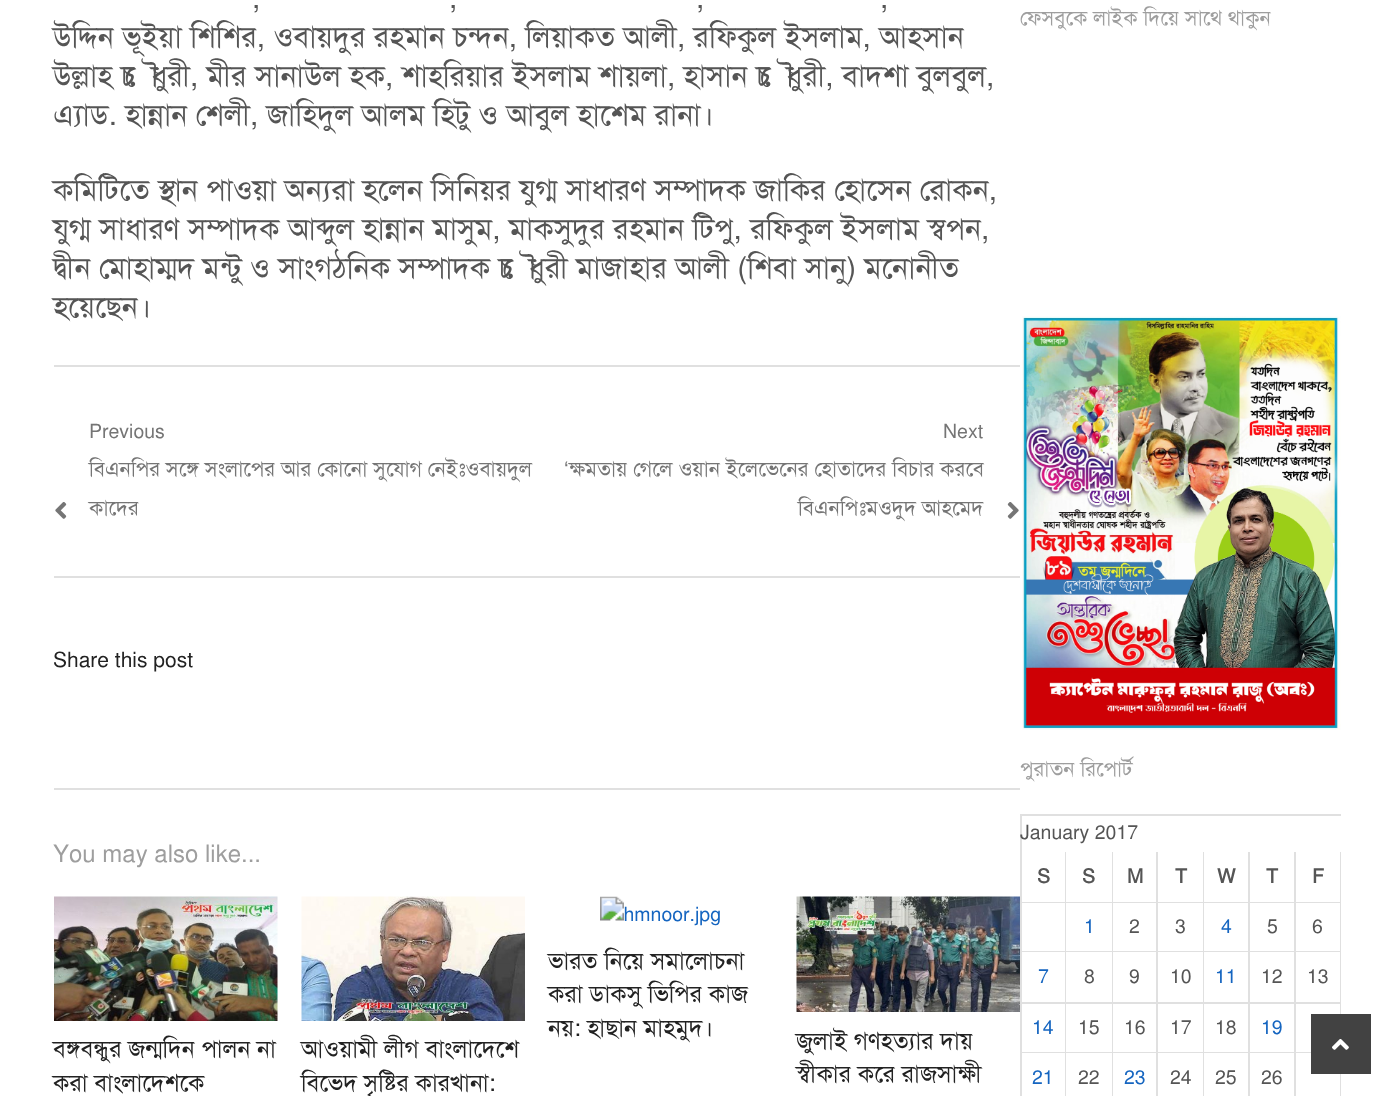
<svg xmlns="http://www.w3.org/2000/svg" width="1395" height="1096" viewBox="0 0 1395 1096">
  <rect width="100%" height="100%" fill="#ffffff"/>
  <rect x="54" y="365" width="966" height="2" fill="#e0e0e0"/>
  <text x="252" y="8" font-family="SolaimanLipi" font-size="30" fill="#555555">,</text>
  <text x="449" y="8" font-family="SolaimanLipi" font-size="30" fill="#555555">,</text>
  <text x="696" y="8" font-family="SolaimanLipi" font-size="30" fill="#555555">,</text>
  <text x="880" y="8" font-family="SolaimanLipi" font-size="30" fill="#555555">,</text>
  <text x="53" y="47" font-family="SolaimanLipi" font-size="30" fill="#555555">উদ্দিন ভূইয়া শিশির, ওবায়দুর রহমান চন্দন, লিয়াকত আলী, রফিকুল ইসলাম, আহসান</text>
  <text x="53" y="86" font-family="SolaimanLipi" font-size="30" fill="#555555">উল্লাহ চৌধুরী, মীর সানাউল হক, শাহরিয়ার ইসলাম শায়লা, হাসান চৌধুরী, বাদশা বুলবুল,</text>
  <text x="53" y="125" font-family="SolaimanLipi" font-size="30" fill="#555555">এ্যাড. হান্নান শেলী, জাহিদুল আলম হিটু ও আবুল হাশেম রানা।</text>
  <text x="53" y="200" font-family="SolaimanLipi" font-size="30" fill="#555555">কমিটিতে স্থান পাওয়া অন্যরা হলেন সিনিয়র যুগ্ম সাধারণ সম্পাদক জাকির হোসেন রোকন,</text>
  <text x="53" y="239" font-family="SolaimanLipi" font-size="30" fill="#555555">যুগ্ম সাধারণ সম্পাদক আব্দুল হান্নান মাসুম, মাকসুদুর রহমান টিপু, রফিকুল ইসলাম স্বপন,</text>
  <text x="53" y="278" font-family="SolaimanLipi" font-size="30" fill="#555555">দ্বীন মোহাম্মদ মন্টু ও সাংগঠনিক সম্পাদক চৌধুরী মাজাহার আলী (শিবা সানু) মনোনীত</text>
  <text x="53" y="317" font-family="SolaimanLipi" font-size="30" fill="#555555">হয়েছেন।</text>
  <rect x="54" y="576" width="966" height="2" fill="#e0e0e0"/>
  <text x="89" y="438" font-family="SolaimanLipi" font-size="19.5" fill="#757575">Previous</text>
  <text x="89" y="476" font-family="SolaimanLipi" font-size="21" fill="#757575">বিএনপির সঙ্গে সংলাপের আর কোনো সুযোগ নেইঃওবায়দুল</text>
  <image x="55" y="502" width="12" height="17" href="img1.png"/>
  <text x="89" y="515" font-family="SolaimanLipi" font-size="21" fill="#757575">কাদের</text>
  <text x="943" y="438" font-family="SolaimanLipi" font-size="19.5" fill="#757575">Next</text>
  <text x="564" y="476" font-family="Liberation Sans" font-size="21" fill="#757575">‘</text>
  <text x="569" y="476" font-family="SolaimanLipi" font-size="21" fill="#757575">ক্ষমতায় গেলে ওয়ান ইলেভেনের হোতাদের বিচার করবে</text>
  <text x="798" y="515" font-family="SolaimanLipi" font-size="21" fill="#757575">বিএনপিঃমওদুদ আহমেদ</text>
  <image x="1007" y="502" width="12" height="17" href="img2.png"/>
  <rect x="54" y="788" width="966" height="2" fill="#e0e0e0"/>
  <text x="53" y="667" font-family="SolaimanLipi" font-size="21" fill="#222222">Share this post</text>
  <text x="53" y="862" font-family="SolaimanLipi" font-size="24" fill="#9e9e9e">You may also like...</text>
  <image x="600" y="896" width="120" height="30" href="img3.png"/>
  <text x="548" y="969" font-family="SolaimanLipi" font-size="24" fill="#222222">ভারত নিয়ে সমালোচনা</text>
  <text x="548" y="1002" font-family="SolaimanLipi" font-size="24" fill="#222222">করা ডাকসু ভিপির কাজ</text>
  <text x="548" y="1036" font-family="SolaimanLipi" font-size="24" fill="#222222">নয়: হাছান মাহমুদ।</text>
  <image x="54" y="896" width="224" height="125" href="img4.png"/>
  <text x="53" y="1057" font-family="SolaimanLipi" font-size="24" fill="#222222">বঙ্গবন্ধুর জন্মদিন পালন না</text>
  <text x="53" y="1091" font-family="SolaimanLipi" font-size="24" fill="#222222">করা বাংলাদেশকে</text>
  <image x="301" y="896" width="224" height="125" href="img5.png"/>
  <text x="301" y="1057" font-family="SolaimanLipi" font-size="24" fill="#222222">আওয়ামী লীগ বাংলাদেশে</text>
  <text x="301" y="1091" font-family="SolaimanLipi" font-size="24" fill="#222222">বিভেদ সৃষ্টির কারখানা:</text>
  <image x="796" y="896" width="224" height="116" href="img6.png"/>
  <text x="796" y="1049" font-family="SolaimanLipi" font-size="24" fill="#222222">জুলাই গণহত্যার দায়</text>
  <text x="796" y="1082" font-family="SolaimanLipi" font-size="24" fill="#222222">স্বীকার করে রাজসাক্ষী</text>
  <text x="1020" y="25" font-family="SolaimanLipi" font-size="21" fill="#9e9e9e">ফেসবুকে লাইক দিয়ে সাথে থাকুন</text>
  <image x="1022" y="316" width="319" height="414" href="img7.png"/>
  <text x="1020" y="776" font-family="SolaimanLipi" font-size="21" fill="#9e9e9e">পুরাতন রিপোর্ট</text>
  <path d="M1020 814H1341V816H1022Z" fill="#e0e0e0"/>
  <path d="M1020 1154V814L1022 816V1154Z" fill="#000000" fill-opacity="0.12"/>
  <text x="1020" y="839" font-family="SolaimanLipi" font-size="19.5" fill="#555555">January 2017</text>
  <path d="M1066 852V903L1065 902V852Z" fill="#e0e0e0"/>
  <path d="M1066 903H1022V902H1065Z" fill="#000000" fill-opacity="0.12"/>
  <text x="1037" y="883" font-family="SolaimanLipi" font-size="19.5" font-weight="bold" fill="#555555">S</text>
  <path d="M1113 852V903L1112 902V852Z" fill="#e0e0e0"/>
  <path d="M1113 903H1066V902H1112Z" fill="#000000" fill-opacity="0.12"/>
  <text x="1082" y="883" font-family="SolaimanLipi" font-size="19.5" font-weight="bold" fill="#555555">S</text>
  <path d="M1158 852V903L1156 902V852Z" fill="#e0e0e0"/>
  <path d="M1158 903H1113V902H1156Z" fill="#000000" fill-opacity="0.12"/>
  <text x="1127" y="883" font-family="SolaimanLipi" font-size="19.5" font-weight="bold" fill="#555555">M</text>
  <path d="M1204 852V903L1203 902V852Z" fill="#e0e0e0"/>
  <path d="M1204 903H1158V902H1203Z" fill="#000000" fill-opacity="0.12"/>
  <text x="1175" y="883" font-family="SolaimanLipi" font-size="19.5" font-weight="bold" fill="#555555">T</text>
  <path d="M1250 852V903L1248 902V852Z" fill="#e0e0e0"/>
  <path d="M1250 903H1204V902H1248Z" fill="#000000" fill-opacity="0.12"/>
  <text x="1217" y="883" font-family="SolaimanLipi" font-size="19.5" font-weight="bold" fill="#555555">W</text>
  <path d="M1296 852V903L1294 902V852Z" fill="#e0e0e0"/>
  <path d="M1296 903H1250V902H1294Z" fill="#000000" fill-opacity="0.12"/>
  <text x="1266" y="883" font-family="SolaimanLipi" font-size="19.5" font-weight="bold" fill="#555555">T</text>
  <path d="M1341 852V903L1340 902V852Z" fill="#e0e0e0"/>
  <path d="M1341 903H1296V902H1340Z" fill="#000000" fill-opacity="0.12"/>
  <text x="1312" y="883" font-family="SolaimanLipi" font-size="19.5" font-weight="bold" fill="#555555">F</text>
  <path d="M1066 903V952L1065 951V903Z" fill="#e0e0e0"/>
  <path d="M1066 952H1022V951H1065Z" fill="#000000" fill-opacity="0.12"/>
  <path d="M1113 903V952L1112 951V903Z" fill="#e0e0e0"/>
  <path d="M1113 952H1066V951H1112Z" fill="#000000" fill-opacity="0.12"/>
  <text x="1084" y="933" font-family="SolaimanLipi" font-size="19.5" fill="#1565c0">1</text>
  <path d="M1158 903V952L1156 951V903Z" fill="#e0e0e0"/>
  <path d="M1158 952H1113V951H1156Z" fill="#000000" fill-opacity="0.12"/>
  <text x="1129" y="933" font-family="SolaimanLipi" font-size="19.5" fill="#555555">2</text>
  <path d="M1204 903V952L1203 951V903Z" fill="#e0e0e0"/>
  <path d="M1204 952H1158V951H1203Z" fill="#000000" fill-opacity="0.12"/>
  <text x="1175" y="933" font-family="SolaimanLipi" font-size="19.5" fill="#555555">3</text>
  <path d="M1250 903V952L1248 951V903Z" fill="#e0e0e0"/>
  <path d="M1250 952H1204V951H1248Z" fill="#000000" fill-opacity="0.12"/>
  <text x="1221" y="933" font-family="SolaimanLipi" font-size="19.5" fill="#1565c0">4</text>
  <path d="M1296 903V952L1294 951V903Z" fill="#e0e0e0"/>
  <path d="M1296 952H1250V951H1294Z" fill="#000000" fill-opacity="0.12"/>
  <text x="1267" y="933" font-family="SolaimanLipi" font-size="19.5" fill="#555555">5</text>
  <path d="M1341 903V952L1340 951V903Z" fill="#e0e0e0"/>
  <path d="M1341 952H1296V951H1340Z" fill="#000000" fill-opacity="0.12"/>
  <text x="1312" y="933" font-family="SolaimanLipi" font-size="19.5" fill="#555555">6</text>
  <path d="M1066 952V1004L1065 1002V952Z" fill="#e0e0e0"/>
  <path d="M1066 1004H1022V1002H1065Z" fill="#000000" fill-opacity="0.12"/>
  <text x="1038" y="983" font-family="SolaimanLipi" font-size="19.5" fill="#1565c0">7</text>
  <path d="M1113 952V1004L1112 1002V952Z" fill="#e0e0e0"/>
  <path d="M1113 1004H1066V1002H1112Z" fill="#000000" fill-opacity="0.12"/>
  <text x="1084" y="983" font-family="SolaimanLipi" font-size="19.5" fill="#555555">8</text>
  <path d="M1158 952V1004L1156 1002V952Z" fill="#e0e0e0"/>
  <path d="M1158 1004H1113V1002H1156Z" fill="#000000" fill-opacity="0.12"/>
  <text x="1129" y="983" font-family="SolaimanLipi" font-size="19.5" fill="#555555">9</text>
  <path d="M1204 952V1004L1203 1002V952Z" fill="#e0e0e0"/>
  <path d="M1204 1004H1158V1002H1203Z" fill="#000000" fill-opacity="0.12"/>
  <text x="1170" y="983" font-family="SolaimanLipi" font-size="19.5" fill="#555555">10</text>
  <path d="M1250 952V1004L1248 1002V952Z" fill="#e0e0e0"/>
  <path d="M1250 1004H1204V1002H1248Z" fill="#000000" fill-opacity="0.12"/>
  <text x="1215" y="983" font-family="SolaimanLipi" font-size="19.5" fill="#1565c0">11</text>
  <path d="M1296 952V1004L1294 1002V952Z" fill="#e0e0e0"/>
  <path d="M1296 1004H1250V1002H1294Z" fill="#000000" fill-opacity="0.12"/>
  <text x="1261" y="983" font-family="SolaimanLipi" font-size="19.5" fill="#555555">12</text>
  <path d="M1341 952V1004L1340 1002V952Z" fill="#e0e0e0"/>
  <path d="M1341 1004H1296V1002H1340Z" fill="#000000" fill-opacity="0.12"/>
  <text x="1307" y="983" font-family="SolaimanLipi" font-size="19.5" fill="#555555">13</text>
  <path d="M1066 1004V1053L1065 1052V1004Z" fill="#e0e0e0"/>
  <path d="M1066 1053H1022V1052H1065Z" fill="#000000" fill-opacity="0.12"/>
  <text x="1032" y="1034" font-family="SolaimanLipi" font-size="19.5" fill="#1565c0">14</text>
  <path d="M1113 1004V1053L1112 1052V1004Z" fill="#e0e0e0"/>
  <path d="M1113 1053H1066V1052H1112Z" fill="#000000" fill-opacity="0.12"/>
  <text x="1078" y="1034" font-family="SolaimanLipi" font-size="19.5" fill="#555555">15</text>
  <path d="M1158 1004V1053L1156 1052V1004Z" fill="#e0e0e0"/>
  <path d="M1158 1053H1113V1052H1156Z" fill="#000000" fill-opacity="0.12"/>
  <text x="1124" y="1034" font-family="SolaimanLipi" font-size="19.5" fill="#555555">16</text>
  <path d="M1204 1004V1053L1203 1052V1004Z" fill="#e0e0e0"/>
  <path d="M1204 1053H1158V1052H1203Z" fill="#000000" fill-opacity="0.12"/>
  <text x="1170" y="1034" font-family="SolaimanLipi" font-size="19.5" fill="#555555">17</text>
  <path d="M1250 1004V1053L1248 1052V1004Z" fill="#e0e0e0"/>
  <path d="M1250 1053H1204V1052H1248Z" fill="#000000" fill-opacity="0.12"/>
  <text x="1215" y="1034" font-family="SolaimanLipi" font-size="19.5" fill="#555555">18</text>
  <path d="M1296 1004V1053L1294 1052V1004Z" fill="#e0e0e0"/>
  <path d="M1296 1053H1250V1052H1294Z" fill="#000000" fill-opacity="0.12"/>
  <text x="1261" y="1034" font-family="SolaimanLipi" font-size="19.5" fill="#1565c0">19</text>
  <path d="M1341 1004V1053L1340 1052V1004Z" fill="#e0e0e0"/>
  <path d="M1341 1053H1296V1052H1340Z" fill="#000000" fill-opacity="0.12"/>
  <path d="M1066 1053V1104L1065 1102V1053ZM1113 1053V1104L1112 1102V1053Z" fill="#e0e0e0"/>
  <text x="1032" y="1084" font-family="SolaimanLipi" font-size="19.5" fill="#1565c0">21</text>
  <text x="1078" y="1084" font-family="SolaimanLipi" font-size="19.5" fill="#555555">22</text>
  <path d="M1158 1053V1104L1156 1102V1053ZM1204 1053V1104L1203 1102V1053Z" fill="#e0e0e0"/>
  <text x="1124" y="1084" font-family="SolaimanLipi" font-size="19.5" fill="#1565c0">23</text>
  <text x="1170" y="1084" font-family="SolaimanLipi" font-size="19.5" fill="#555555">24</text>
  <path d="M1250 1053V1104L1248 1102V1053ZM1296 1053V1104L1294 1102V1053Z" fill="#e0e0e0"/>
  <text x="1215" y="1084" font-family="SolaimanLipi" font-size="19.5" fill="#555555">25</text>
  <text x="1261" y="1084" font-family="SolaimanLipi" font-size="19.5" fill="#555555">26</text>
  <path d="M1341 1053V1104L1340 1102V1053Z" fill="#e0e0e0"/>
  <rect x="1311" y="1014" width="60" height="60" fill="#424242"/>
  <image x="1332" y="1039" width="17" height="11" href="img8.png"/>
</svg>
